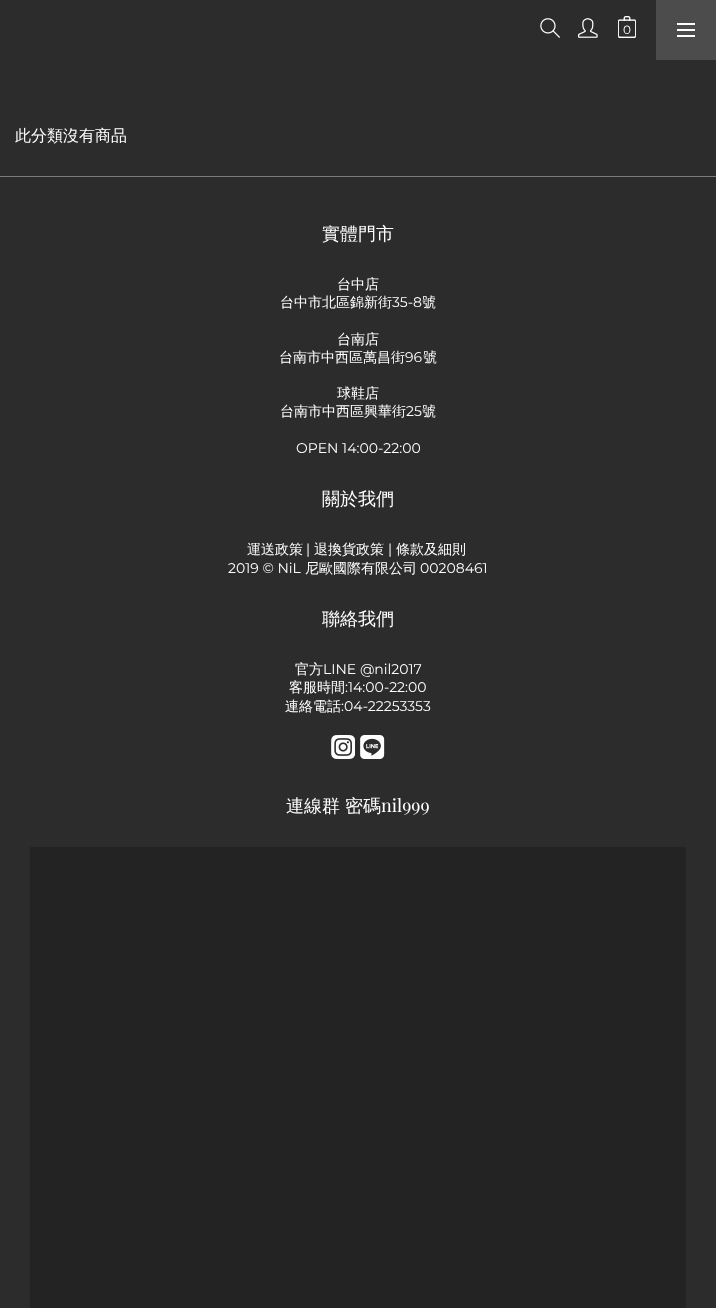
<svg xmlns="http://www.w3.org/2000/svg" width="716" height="1308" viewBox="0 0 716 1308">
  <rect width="100%" height="100%" fill="#2c2c2c"/>
  <image x="540" y="18" width="20" height="20" href="img1.png"/>
  <image x="578" y="18" width="20" height="20" href="img2.png"/>
  <image x="618" y="16" width="18" height="22" href="img3.png"/>
  <rect x="619" y="21" width="16" height="15" fill="#2c2c2c"/>
  <text x="623" y="34" font-family="Montserrat" font-size="12" fill="#ffffff">0</text>
  <rect x="656" y="0" width="60" height="60" fill="#4c4c4c"/>
  <rect x="677" y="29" width="18" height="2" fill="#ffffff"/>
  <rect x="677" y="23" width="18" height="2" fill="#ffffff"/>
  <rect x="677" y="35" width="18" height="2" fill="#ffffff"/>
  <text x="15" y="141" font-family="WenQuanYi Zen Hei" font-size="16" font-weight="500" fill="#ffffff">此分類沒有商品</text>
  <rect x="0" y="176" width="716" height="1" fill="#7c7c7c"/>
  <text x="322" y="240" font-family="WenQuanYi Zen Hei" font-size="18" font-weight="500" fill="#ffffff">實體門市</text>
  <text x="337" y="289" font-family="WenQuanYi Zen Hei" font-size="14" font-weight="500" fill="#ffffff">台中店</text>
  <text x="280" y="307" font-family="WenQuanYi Zen Hei" font-size="14" font-weight="500" fill="#ffffff">台中市北區錦新街</text>
  <text x="392" y="307" font-family="Montserrat" font-size="14" fill="#ffffff">35-8</text>
  <text x="422" y="307" font-family="WenQuanYi Zen Hei" font-size="14" font-weight="500" fill="#ffffff">號</text>
  <text x="337" y="344" font-family="WenQuanYi Zen Hei" font-size="14" font-weight="500" fill="#ffffff">台南店</text>
  <text x="279" y="362" font-family="WenQuanYi Zen Hei" font-size="14" font-weight="500" fill="#ffffff">台南市中西區萬昌街</text>
  <text x="405" y="362" font-family="Montserrat" font-size="14" fill="#ffffff">96</text>
  <text x="423" y="362" font-family="WenQuanYi Zen Hei" font-size="14" font-weight="500" fill="#ffffff">號</text>
  <text x="337" y="398" font-family="WenQuanYi Zen Hei" font-size="14" font-weight="500" fill="#ffffff">球鞋店</text>
  <text x="280" y="416" font-family="WenQuanYi Zen Hei" font-size="14" font-weight="500" fill="#ffffff">台南市中西區興華街</text>
  <text x="406" y="416" font-family="Montserrat" font-size="14" fill="#ffffff">25</text>
  <text x="422" y="416" font-family="WenQuanYi Zen Hei" font-size="14" font-weight="500" fill="#ffffff">號</text>
  <text x="296" y="453" font-family="Montserrat" font-size="14" fill="#ffffff">OPEN 14:00-22:00</text>
  <text x="322" y="505" font-family="WenQuanYi Zen Hei" font-size="18" font-weight="500" fill="#ffffff">關於我們</text>
  <text x="247" y="554" font-family="WenQuanYi Zen Hei" font-size="14" font-weight="500" fill="#ffffff">運送政策</text>
  <text x="306" y="554" font-family="Montserrat" font-size="14" fill="#ffffff">|</text>
  <text x="314" y="554" font-family="WenQuanYi Zen Hei" font-size="14" font-weight="500" fill="#ffffff">退換貨政策</text>
  <text x="388" y="554" font-family="Montserrat" font-size="14" fill="#ffffff">|</text>
  <text x="396" y="554" font-family="WenQuanYi Zen Hei" font-size="14" font-weight="500" fill="#ffffff">條款及細則</text>
  <text x="228" y="573" font-family="Montserrat" font-size="14" fill="#ffffff">2019 © NiL</text>
  <text x="305" y="573" font-family="WenQuanYi Zen Hei" font-size="14" font-weight="500" fill="#ffffff">尼歐國際有限公司</text>
  <text x="420" y="573" font-family="Montserrat" font-size="14" fill="#ffffff">00208461</text>
  <text x="322" y="625" font-family="WenQuanYi Zen Hei" font-size="18" font-weight="500" fill="#ffffff">聯絡我們</text>
  <text x="295" y="674" font-family="WenQuanYi Zen Hei" font-size="14" font-weight="500" fill="#ffffff">官方</text>
  <text x="323" y="674" font-family="Montserrat" font-size="14" fill="#ffffff">LINE @nil2017</text>
  <text x="289" y="692" font-family="WenQuanYi Zen Hei" font-size="14" font-weight="500" fill="#ffffff">客服時間</text>
  <text x="345" y="692" font-family="Montserrat" font-size="14" fill="#ffffff">:14:00-22:00</text>
  <text x="285" y="711" font-family="WenQuanYi Zen Hei" font-size="14" font-weight="500" fill="#ffffff">連絡電話</text>
  <text x="341" y="711" font-family="Montserrat" font-size="14" fill="#ffffff">:04-22253353</text>
  <image x="331" y="735" width="24" height="24" href="img4.png"/>
  <image x="360" y="735" width="25" height="24" href="img5.png"/>
  <text x="286" y="812" font-family="WenQuanYi Zen Hei" font-size="18" font-weight="500" fill="#ffffff">連線群</text>
  <text x="345" y="812" font-family="WenQuanYi Zen Hei" font-size="18" font-weight="500" fill="#ffffff">密碼</text>
  <text x="381" y="812" font-family="Playfair Display" font-size="18" fill="#ffffff">nil999</text>
  <rect x="30" y="847" width="656" height="461" fill="#232323"/>
</svg>
